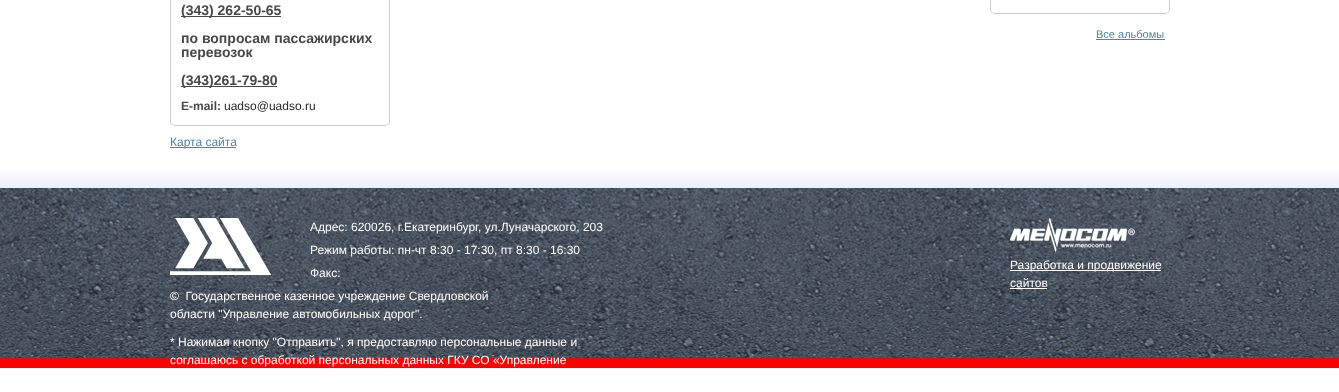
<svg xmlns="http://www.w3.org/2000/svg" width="1339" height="392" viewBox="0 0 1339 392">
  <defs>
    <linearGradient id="g1" gradientUnits="userSpaceOnUse" x1="670" y1="168" x2="670" y2="188"><stop offset="0" stop-color="#ffffff"/><stop offset="1" stop-color="#eaf0fc"/></linearGradient>
  </defs>
  <rect width="100%" height="100%" fill="#ffffff"/>
  <path d="M170.5-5.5H389.5V121C389.5 123.5 387.5 125.5 385 125.5H175C172.5 125.5 170.5 123.5 170.5 121Z" fill="none" stroke="#cecece"/>
  <rect x="181" y="16" width="100" height="1" fill="#484848"/>
  <text x="181" y="15" font-family="Liberation Sans" font-size="14" font-weight="bold" fill="#484848">(343) 262-50-65</text>
  <text x="181" y="43" font-family="Liberation Sans" font-size="14" font-weight="bold" fill="#484848">по вопросам пассажирских</text>
  <text x="181" y="57" font-family="Liberation Sans" font-size="14" font-weight="bold" fill="#484848">перевозок</text>
  <rect x="181" y="86" width="96" height="1" fill="#484848"/>
  <text x="181" y="85" font-family="Liberation Sans" font-size="14" font-weight="bold" fill="#484848">(343)261-79-80</text>
  <text x="181" y="110" font-family="Liberation Sans" font-size="12" font-weight="bold" fill="#484848">E-mail:</text>
  <text x="224" y="110" font-family="Liberation Sans" font-size="12" fill="#292929">uadso@uadso.ru</text>
  <rect x="170" y="147" width="66" height="1" fill="#4d86ac"/>
  <text x="170" y="146" font-family="Liberation Sans" font-size="12" fill="#4d86ac">Карта сайта</text>
  <path d="M990.5-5.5H1169.5V9C1169.5 11.5 1167.5 13.5 1165 13.5H995C992.5 13.5 990.5 11.5 990.5 9Z" fill="none" stroke="#cecece"/>
  <text x="1096" y="38" font-family="Liberation Sans" font-size="11" fill="#4d86ac">Все альбомы</text>
  <rect x="1096" y="39" width="69" height="1" fill="#4d86ac"/>
  <rect x="0" y="170" width="1339" height="18" fill="url(#g1)"/>
  <image x="0" y="188" width="1339" height="170" href="img1.png"/>
  <rect x="0" y="358" width="1339" height="10" fill="#ff0000"/>
  <image x="170" y="218" width="101" height="57" href="img2.png"/>
  <text x="310" y="231" font-family="Liberation Sans" font-size="12" fill="#fffefe">Адрес: 620026, г.Екатеринбург, ул.Луначарского, 203</text>
  <text x="310" y="254" font-family="Liberation Sans" font-size="12" fill="#fffefe">Режим работы: пн-чт 8:30 - 17:30, пт 8:30 - 16:30</text>
  <text x="310" y="277" font-family="Liberation Sans" font-size="12" fill="#fffefe">Факс:</text>
  <text x="170" y="300" font-family="Liberation Sans" font-size="12" fill="#fffefe" xml:space="preserve">©  Государственное казенное учреждение Свердловской</text>
  <text x="170" y="318" font-family="Liberation Sans" font-size="12" fill="#fffefe">области "Управление автомобильных дорог".</text>
  <text x="170" y="346" font-family="Liberation Sans" font-size="12" fill="#fffefe">* Нажимая кнопку "Отправить", я предоставляю персональные данные и</text>
  <text x="170" y="364" font-family="Liberation Sans" font-size="12" fill="#fffefe">соглашаюсь с обработкой персональных данных ГКУ СО «Управление</text>
  <image x="1010" y="218" width="125" height="36" href="img3.png"/>
  <rect x="1010" y="270" width="151" height="1" fill="#fffefe"/>
  <text x="1010" y="269" font-family="Liberation Sans" font-size="12" fill="#fffefe">Разработка и продвижение</text>
  <text x="1010" y="287" font-family="Liberation Sans" font-size="12" fill="#fffefe">сайтов</text>
  <rect x="1010" y="288" width="37" height="1" fill="#fffefe"/>
</svg>
